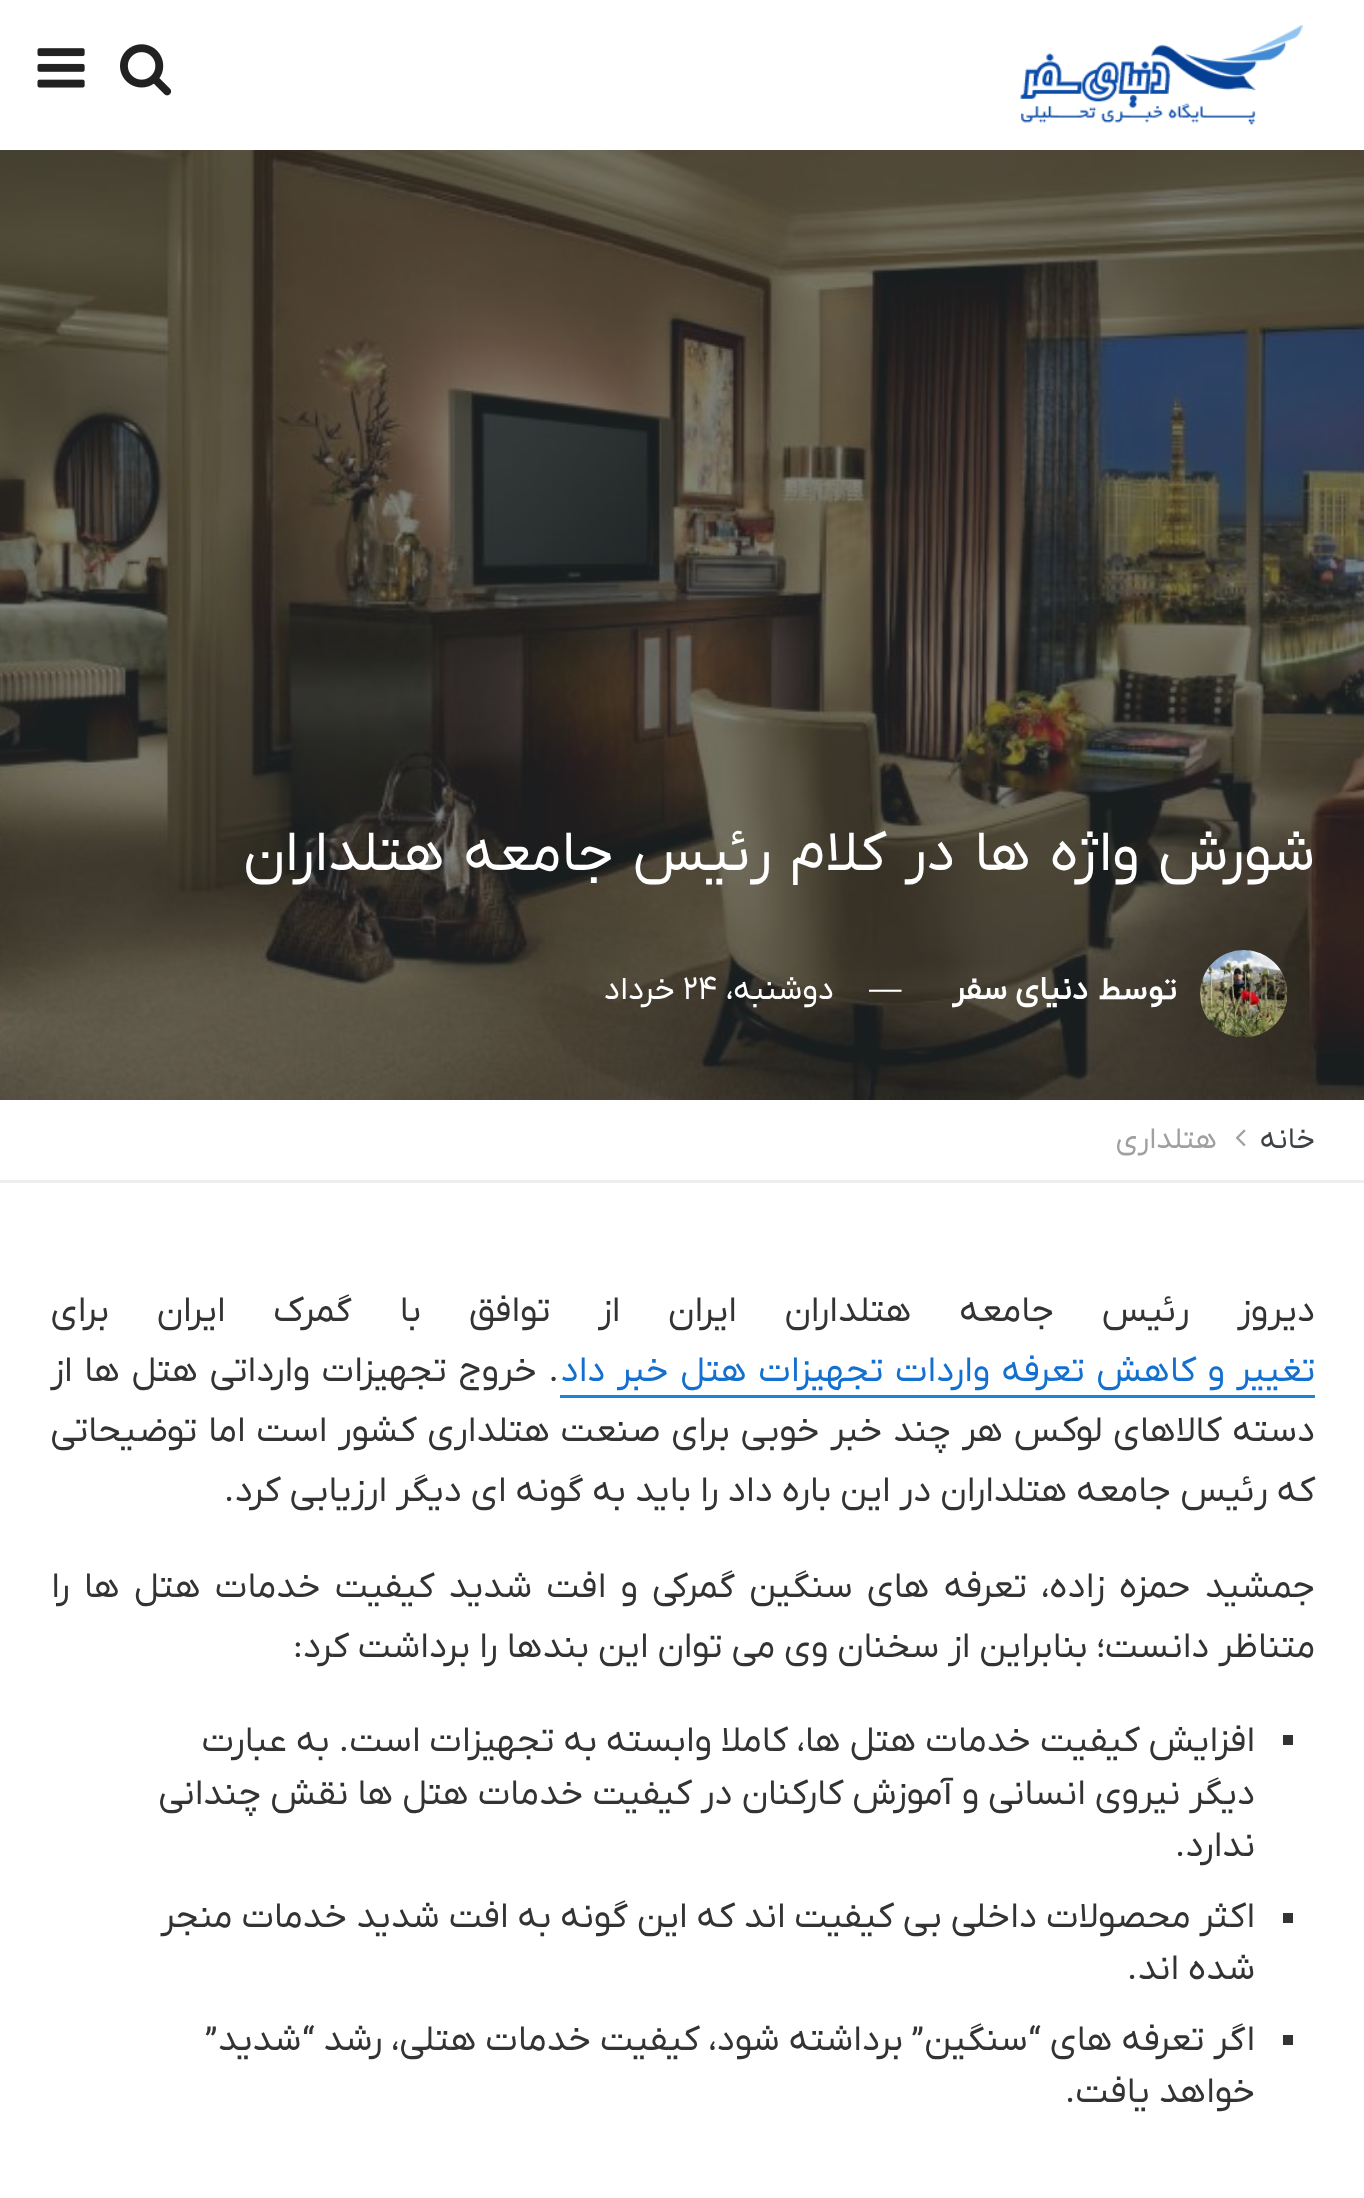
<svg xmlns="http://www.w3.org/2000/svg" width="1364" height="2198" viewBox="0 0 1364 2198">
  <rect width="100%" height="100%" fill="#ffffff"/>
  <image x="1020" y="25" width="283" height="100" href="img1.png"/>
  <image x="120" y="44" width="52" height="52" href="img2.png"/>
  <image x="37" y="48" width="48" height="40" href="img3.png"/>
  <rect x="0" y="150" width="1364" height="950" fill="#293132"/>
  <image x="0" y="150" width="1364" height="950" href="img4.png"/>
  <text x="1315" y="870" word-spacing="4.5" font-family="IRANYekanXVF" font-size="57.5" direction="rtl" fill="#ffffff">شورش واژه ها در کلام رئیس جامعه هتلداران</text>
  <image x="1200" y="950" width="88" height="88" href="img5.png"/>
  <text x="1177" y="999" font-family="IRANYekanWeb" font-size="32.5" font-weight="bold" direction="rtl" fill="#ffffff">توسط</text>
  <text x="1088" y="999" font-family="IRANYekanXVF" font-size="32.5" font-weight="bold" direction="rtl" fill="#ffffff">دنیای سفر</text>
  <text x="869" y="999" font-family="Liberation Sans" font-size="32.5" fill="#ffffff">—</text>
  <text x="834" y="999" font-family="IRANYekanXVF" font-size="32.5" direction="rtl" fill="#ffffff">دوشنبه،</text>
  <text x="683" y="999" font-family="IRANYekanXVF" font-size="32.5" fill="#ffffff">۲۴</text>
  <text x="675" y="999" font-family="IRANYekanXVF" font-size="32.5" direction="rtl" fill="#ffffff">خرداد</text>
  <rect x="0" y="1180" width="1364" height="3" fill="#eeeeee"/>
  <text x="1315" y="1148" font-family="IRANYekanXVF" font-size="30" direction="rtl" fill="#3c4344">خانه</text>
  <image x="1235" y="1129" width="11" height="18" href="img6.png"/>
  <text x="1217" y="1148" font-family="IRANYekanXVF" font-size="30" direction="rtl" fill="#a0a0a0">هتلداری</text>
  <text x="1315" y="1321" word-spacing="38.75" font-family="IRANYekanXVF" font-size="36.25" direction="rtl" fill="#333333">دیروز رئیس جامعه هتلداران ایران از توافق با گمرک ایران برای</text>
  <text x="1315" y="1381" word-spacing="2.5" font-family="IRANYekanXVF" font-size="36.25" direction="rtl" fill="#1370cf">تغییر و کاهش تعرفه واردات تجهیزات هتل خبر داد</text>
  <rect x="560" y="1395" width="755" height="3" fill="#1a86da"/>
  <text x="559" y="1381" word-spacing="2.5" font-family="IRANYekanXVF" font-size="36.25" direction="rtl" fill="#333333">. خروج تجهیزات وارداتی هتل ها از</text>
  <text x="1315" y="1441" word-spacing="1.75" font-family="IRANYekanXVF" font-size="36.25" direction="rtl" fill="#333333">دسته کالاهای لوکس هر چند خبر خوبی برای صنعت هتلداری کشور است اما توضیحاتی</text>
  <text x="1315" y="1501" font-family="IRANYekanXVF" font-size="36.25" direction="rtl" fill="#333333">که رئیس جامعه هتلداران در این باره داد را باید به گونه ای دیگر ارزیابی کرد.</text>
  <text x="1315" y="1597" word-spacing="5.25" font-family="IRANYekanXVF" font-size="36.25" direction="rtl" fill="#333333">جمشید حمزه زاده، تعرفه های سنگین گمرکی و افت شدید کیفیت خدمات هتل ها را</text>
  <text x="1315" y="1657" font-family="IRANYekanXVF" font-size="36.25" direction="rtl" fill="#333333">متناظر دانست؛ بنابراین از سخنان وی می توان این بندها را برداشت کرد:</text>
  <rect x="1283" y="1735" width="10" height="10" fill="#333333"/>
  <text x="1255" y="1751" font-family="IRANYekanXVF" font-size="36.25" direction="rtl" fill="#333333">افزایش کیفیت خدمات هتل ها، کاملا وابسته به تجهیزات است. به عبارت</text>
  <text x="1255" y="1804" font-family="IRANYekanXVF" font-size="36.25" direction="rtl" fill="#333333">دیگر نیروی انسانی و آموزش کارکنان در کیفیت خدمات هتل ها نقش چندانی</text>
  <text x="1255" y="1856" font-family="IRANYekanXVF" font-size="36.25" direction="rtl" fill="#333333">ندارد.</text>
  <rect x="1283" y="1913" width="10" height="10" fill="#333333"/>
  <text x="1255" y="1927" font-family="IRANYekanXVF" font-size="36.25" direction="rtl" fill="#333333">اکثر محصولات داخلی بی کیفیت اند که این گونه به افت شدید خدمات منجر</text>
  <text x="1255" y="1979" font-family="IRANYekanXVF" font-size="36.25" direction="rtl" fill="#333333">شده اند.</text>
  <rect x="1283" y="2035" width="10" height="10" fill="#333333"/>
  <text x="1255" y="2050" font-family="IRANYekanXVF" font-size="36.25" direction="rtl" fill="#333333">اگر تعرفه های “سنگین” برداشته شود، کیفیت خدمات هتلی، رشد “شدید”</text>
  <text x="1255" y="2102" font-family="IRANYekanXVF" font-size="36.25" direction="rtl" fill="#333333">خواهد یافت.</text>
</svg>
